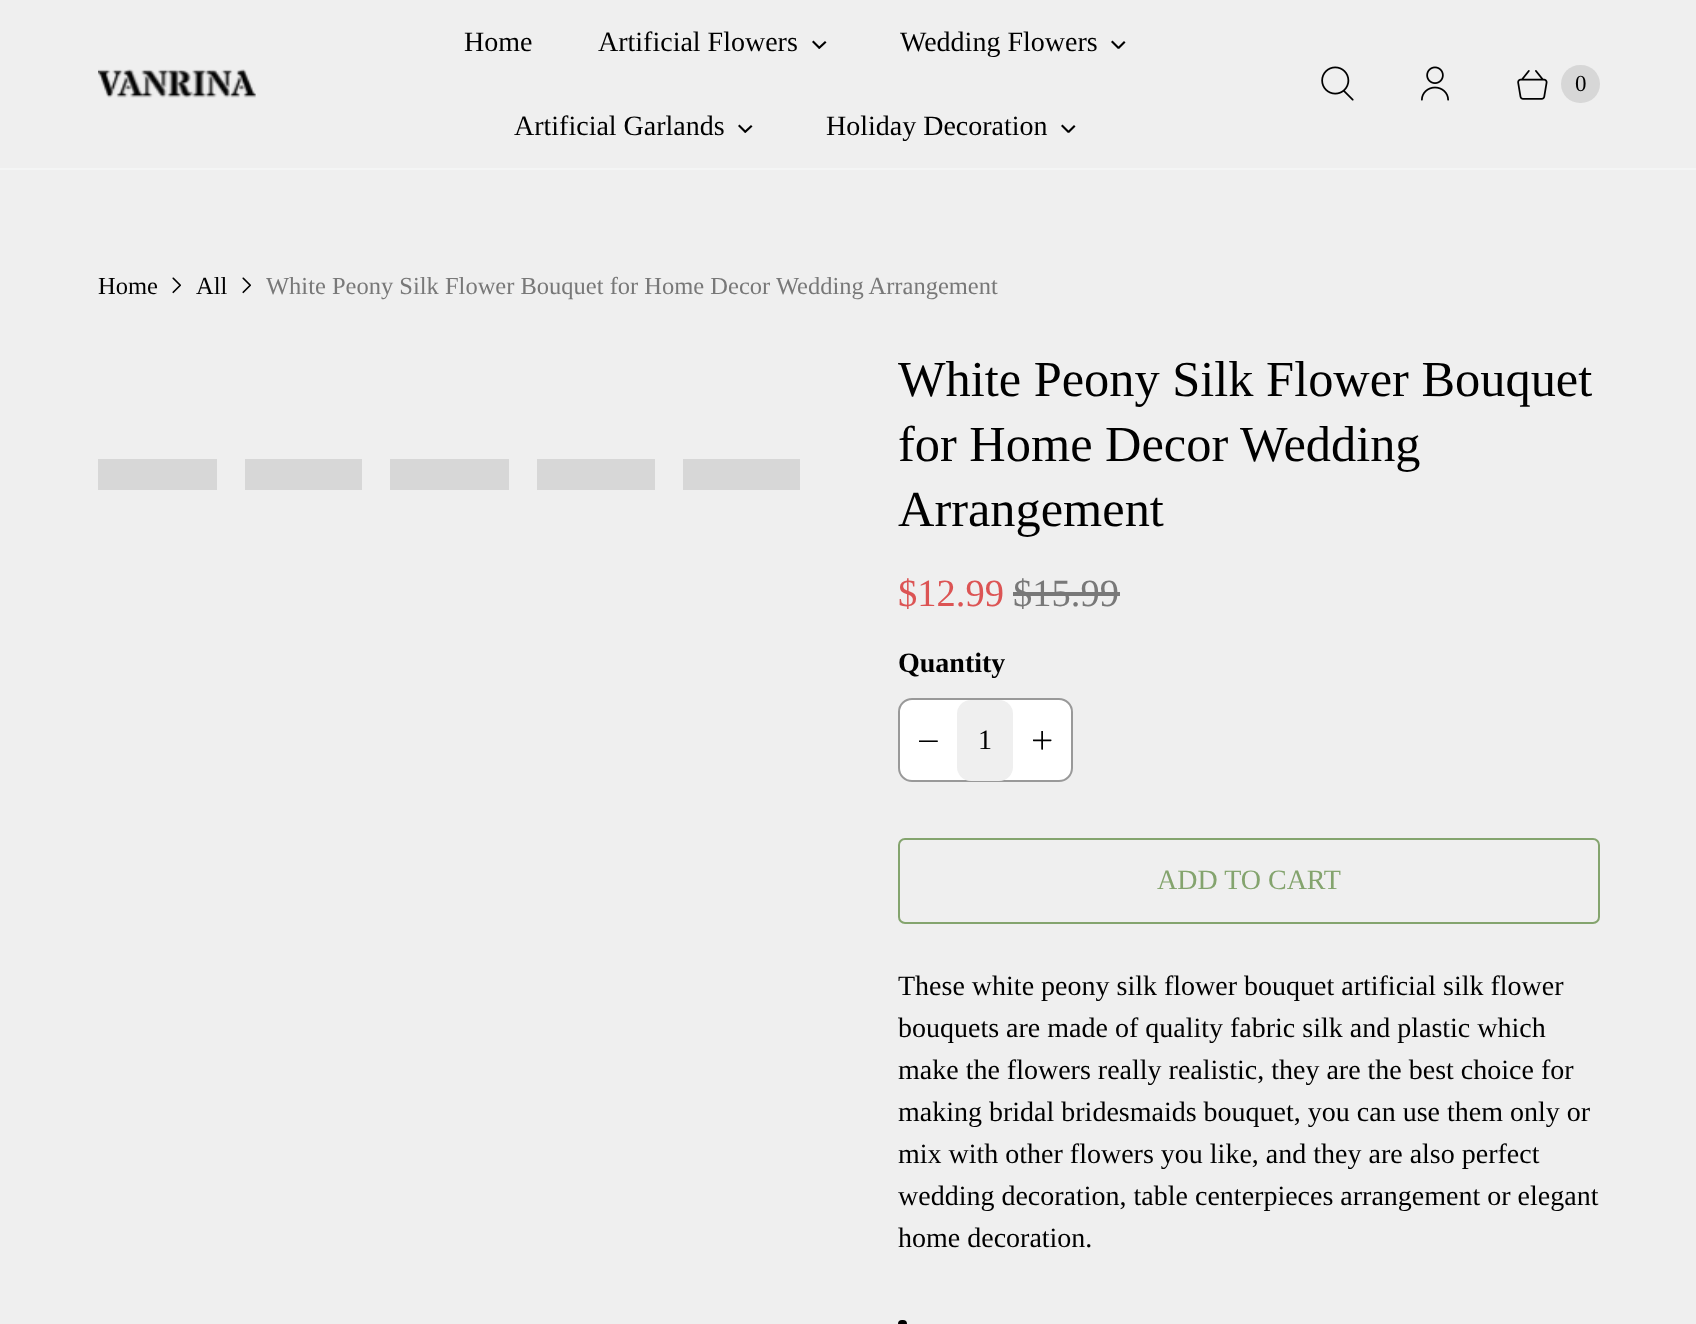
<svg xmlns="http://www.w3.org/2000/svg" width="1696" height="1324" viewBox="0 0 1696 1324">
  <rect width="100%" height="100%" fill="#efefef"/>
  <rect x="0" y="168" width="1696" height="2" fill="#f4f5f5"/>
  <image x="98" y="69" width="158" height="29" href="img1.png"/>
  <text x="464" y="51" font-family="Liberation Serif" font-size="28" fill="#000000">Home</text>
  <text x="598" y="51" font-family="Liberation Serif" font-size="28" fill="#000000">Artificial Flowers</text>
  <path d="M825 41L826.5 42.5L819.5 49L818 47.5Z" fill="#000000"/>
  <path d="M813.5 40.5L820.5 47.5L819 49L812 42Z" fill="#000000"/>
  <text x="900" y="51" font-family="Liberation Serif" font-size="28" fill="#000000">Wedding Flowers</text>
  <path d="M1124 41L1125.5 42.5L1119 49L1117.5 47.5Z" fill="#000000"/>
  <path d="M1112.5 40.5L1119.5 47.5L1118 49L1111 42Z" fill="#000000"/>
  <text x="514" y="135" font-family="Liberation Serif" font-size="28" fill="#000000">Artificial Garlands</text>
  <path d="M751 125L752.5 126.5L745.5 133L744 131.5Z" fill="#000000"/>
  <path d="M739.5 124.5L746.5 131.5L745 133L738 126Z" fill="#000000"/>
  <text x="826" y="135" font-family="Liberation Serif" font-size="28" fill="#000000">Holiday Decoration</text>
  <path d="M1074 125L1075.5 126.5L1069 133L1067.5 131.5Z" fill="#000000"/>
  <path d="M1062.5 124.5L1069.5 131.5L1068 133L1061 126Z" fill="#000000"/>
  <image x="1321" y="66" width="33" height="35" href="img2.png"/>
  <image x="1421" y="66" width="28" height="35" href="img3.png"/>
  <image x="1517" y="70" width="31" height="30" href="img4.png"/>
  <rect x="1561" y="65" width="39" height="38" rx="19" fill="#d7d7d7"/>
  <text x="1575" y="91" font-family="Liberation Serif" font-size="23" fill="#000000">0</text>
  <text x="98" y="294" font-family="Liberation Serif" font-size="24.5" fill="#000000">Home</text>
  <image x="172" y="277" width="9" height="17" href="img5.png"/>
  <text x="196" y="294" font-family="Liberation Serif" font-size="24.5" fill="#000000">All</text>
  <image x="242" y="277" width="9" height="17" href="img5.png"/>
  <text x="266" y="294" font-family="Liberation Serif" font-size="24.5" fill="#787878">White Peony Silk Flower Bouquet for Home Decor Wedding Arrangement</text>
  <rect x="98" y="459" width="119" height="31" fill="#d7d7d7"/>
  <rect x="245" y="459" width="117" height="31" fill="#d7d7d7"/>
  <rect x="390" y="459" width="119" height="31" fill="#d7d7d7"/>
  <rect x="537" y="459" width="118" height="31" fill="#d7d7d7"/>
  <rect x="683" y="459" width="117" height="31" fill="#d7d7d7"/>
  <text x="898" y="396" font-family="Liberation Serif" font-size="50.4" fill="#000000">White Peony Silk Flower Bouquet</text>
  <text x="898" y="461" font-family="Liberation Serif" font-size="50.4" fill="#000000">for Home Decor Wedding</text>
  <text x="898" y="526" font-family="Liberation Serif" font-size="50.4" fill="#000000">Arrangement</text>
  <text x="898" y="606" font-family="Liberation Serif" font-size="38.5" fill="#dc5454">$12.99</text>
  <text x="1013" y="606" font-family="Liberation Serif" font-size="38.5" fill="#787878">$15.99</text>
  <rect x="1013" y="592" width="107" height="4" fill="#787878"/>
  <text x="898" y="672" font-family="Liberation Serif" font-size="28" font-weight="bold" fill="#000000">Quantity</text>
  <rect x="898" y="698" width="175" height="84" rx="14" fill="#ffffff"/>
  <rect x="899" y="699" width="173" height="82" rx="13" fill="none" stroke="#000000" stroke-opacity="0.4" stroke-width="2"/>
  <image x="919" y="740" width="19" height="2" href="img6.png"/>
  <rect x="957" y="700" width="56" height="81" rx="14" fill="#efefef"/>
  <text x="978" y="749" font-family="Liberation Serif" font-size="28" fill="#000000">1</text>
  <image x="1033" y="731" width="19" height="19" href="img7.png"/>
  <rect x="899" y="839" width="700" height="84" rx="6" fill="none" stroke="#84a46e" stroke-width="2"/>
  <text x="1157" y="889" font-family="Liberation Serif" font-size="28" fill="#84a46e">ADD TO CART</text>
  <text x="898" y="995" font-family="Liberation Serif" font-size="28" fill="#000000">These white peony silk flower bouquet artificial silk flower</text>
  <text x="898" y="1037" font-family="Liberation Serif" font-size="28" fill="#000000">bouquets are made of quality fabric silk and plastic which</text>
  <text x="898" y="1079" font-family="Liberation Serif" font-size="28" fill="#000000">make the flowers really realistic, they are the best choice for</text>
  <text x="898" y="1121" font-family="Liberation Serif" font-size="28" fill="#000000">making bridal bridesmaids bouquet, you can use them only or</text>
  <text x="898" y="1163" font-family="Liberation Serif" font-size="28" fill="#000000">mix with other flowers you like, and they are also perfect</text>
  <text x="898" y="1205" font-family="Liberation Serif" font-size="28" fill="#000000">wedding decoration, table centerpieces arrangement or elegant</text>
  <text x="898" y="1247" font-family="Liberation Serif" font-size="28" fill="#000000">home decoration.</text>
  <rect x="898" y="1320" width="9" height="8" rx="4" fill="#000000"/>
</svg>
